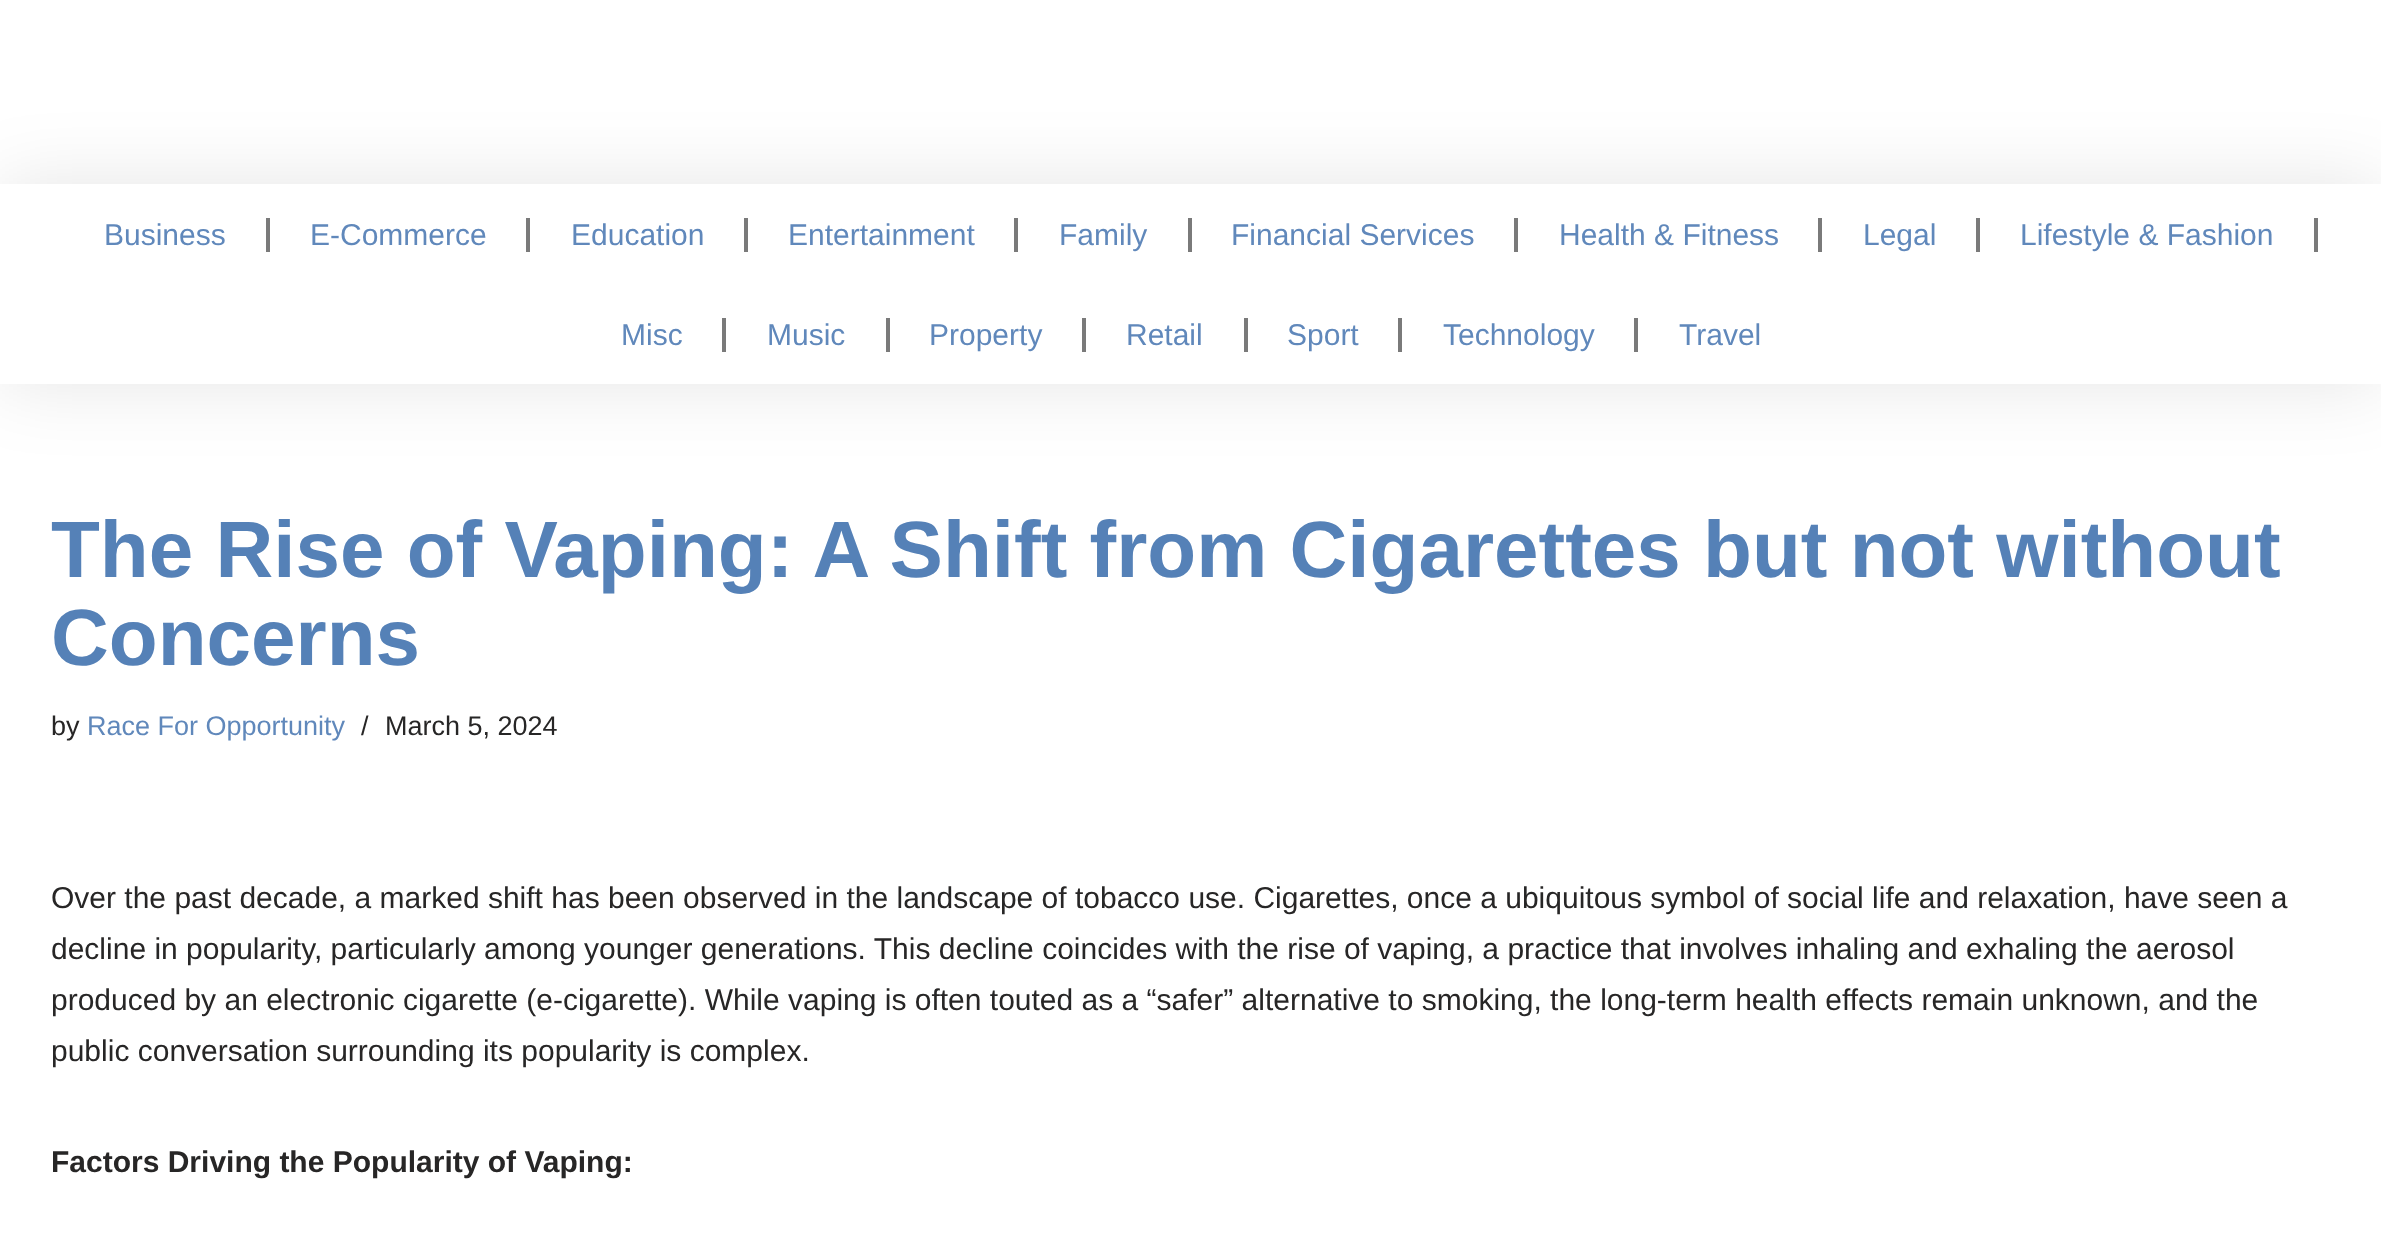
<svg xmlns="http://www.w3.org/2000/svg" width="2381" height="1235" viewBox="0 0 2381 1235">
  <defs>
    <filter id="blur1" x="-50%" y="-200%" width="200%" height="500%"><feGaussianBlur stdDeviation="38"/></filter>
  </defs>
  <rect width="100%" height="100%" fill="#ffffff"/>
  <rect x="0" y="184" width="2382" height="200" fill="#000000" fill-opacity="0.1" filter="url(#blur1)"/>
  <rect x="0" y="184" width="2381" height="200" fill="#ffffff"/>
  <text x="104" y="245" font-family="Liberation Sans" font-size="30" fill="#6088bb">Business</text>
  <rect x="266" y="218" width="4" height="34" fill="#7a7a7a"/>
  <text x="310" y="245" font-family="Liberation Sans" font-size="30" fill="#6088bb">E-Commerce</text>
  <rect x="526" y="218" width="4" height="34" fill="#7a7a7a"/>
  <text x="571" y="245" font-family="Liberation Sans" font-size="30" fill="#6088bb">Education</text>
  <rect x="744" y="218" width="4" height="34" fill="#7a7a7a"/>
  <text x="788" y="245" font-family="Liberation Sans" font-size="30" fill="#6088bb">Entertainment</text>
  <rect x="1014" y="218" width="4" height="34" fill="#7a7a7a"/>
  <text x="1059" y="245" font-family="Liberation Sans" font-size="30" fill="#6088bb">Family</text>
  <rect x="1188" y="218" width="4" height="34" fill="#7a7a7a"/>
  <text x="1231" y="245" font-family="Liberation Sans" font-size="30" fill="#6088bb">Financial Services</text>
  <rect x="1514" y="218" width="4" height="34" fill="#7a7a7a"/>
  <text x="1559" y="245" font-family="Liberation Sans" font-size="30" fill="#6088bb">Health &amp; Fitness</text>
  <rect x="1818" y="218" width="4" height="34" fill="#7a7a7a"/>
  <text x="1863" y="245" font-family="Liberation Sans" font-size="30" fill="#6088bb">Legal</text>
  <rect x="1976" y="218" width="4" height="34" fill="#7a7a7a"/>
  <text x="2020" y="245" font-family="Liberation Sans" font-size="30" fill="#6088bb">Lifestyle &amp; Fashion</text>
  <rect x="2314" y="218" width="4" height="34" fill="#7a7a7a"/>
  <text x="621" y="345" font-family="Liberation Sans" font-size="30" fill="#6088bb">Misc</text>
  <rect x="722" y="318" width="4" height="34" fill="#7a7a7a"/>
  <text x="767" y="345" font-family="Liberation Sans" font-size="30" fill="#6088bb">Music</text>
  <rect x="886" y="318" width="4" height="34" fill="#7a7a7a"/>
  <text x="929" y="345" font-family="Liberation Sans" font-size="30" fill="#6088bb">Property</text>
  <rect x="1082" y="318" width="4" height="34" fill="#7a7a7a"/>
  <text x="1126" y="345" font-family="Liberation Sans" font-size="30" fill="#6088bb">Retail</text>
  <rect x="1244" y="318" width="4" height="34" fill="#7a7a7a"/>
  <text x="1287" y="345" font-family="Liberation Sans" font-size="30" fill="#6088bb">Sport</text>
  <rect x="1398" y="318" width="4" height="34" fill="#7a7a7a"/>
  <text x="1443" y="345" font-family="Liberation Sans" font-size="30" fill="#6088bb">Technology</text>
  <rect x="1634" y="318" width="4" height="34" fill="#7a7a7a"/>
  <text x="1679" y="345" font-family="Liberation Sans" font-size="30" fill="#6088bb">Travel</text>
  <text x="51" y="577" font-family="Liberation Sans" font-size="80" font-weight="bold" fill="#5581b7">The Rise of Vaping: A Shift from Cigarettes but not without</text>
  <text x="51" y="665" font-family="Liberation Sans" font-size="80" font-weight="bold" fill="#5581b7">Concerns</text>
  <text x="51" y="735" font-family="Liberation Sans" font-size="27" fill="#272626">by</text>
  <text x="87" y="735" font-family="Liberation Sans" font-size="27" fill="#6088bb">Race For Opportunity</text>
  <text x="361" y="735" font-family="Liberation Sans" font-size="27" fill="#272626">/</text>
  <text x="385" y="735" font-family="Liberation Sans" font-size="27" fill="#272626">March 5, 2024</text>
  <text x="51" y="908" font-family="Liberation Sans" font-size="30" fill="#272626">Over the past decade, a marked shift has been observed in the landscape of tobacco use. Cigarettes, once a ubiquitous symbol of social life and relaxation, have seen a</text>
  <text x="51" y="959" font-family="Liberation Sans" font-size="30" fill="#272626">decline in popularity, particularly among younger generations. This decline coincides with the rise of vaping, a practice that involves inhaling and exhaling the aerosol</text>
  <text x="51" y="1010" font-family="Liberation Sans" font-size="30" fill="#272626">produced by an electronic cigarette (e-cigarette). While vaping is often touted as a “safer” alternative to smoking, the long-term health effects remain unknown, and the</text>
  <text x="51" y="1061" font-family="Liberation Sans" font-size="30" fill="#272626">public conversation surrounding its popularity is complex.</text>
  <text x="51" y="1172" font-family="Liberation Sans" font-size="30" font-weight="bold" fill="#272626">Factors Driving the Popularity of Vaping:</text>
</svg>
